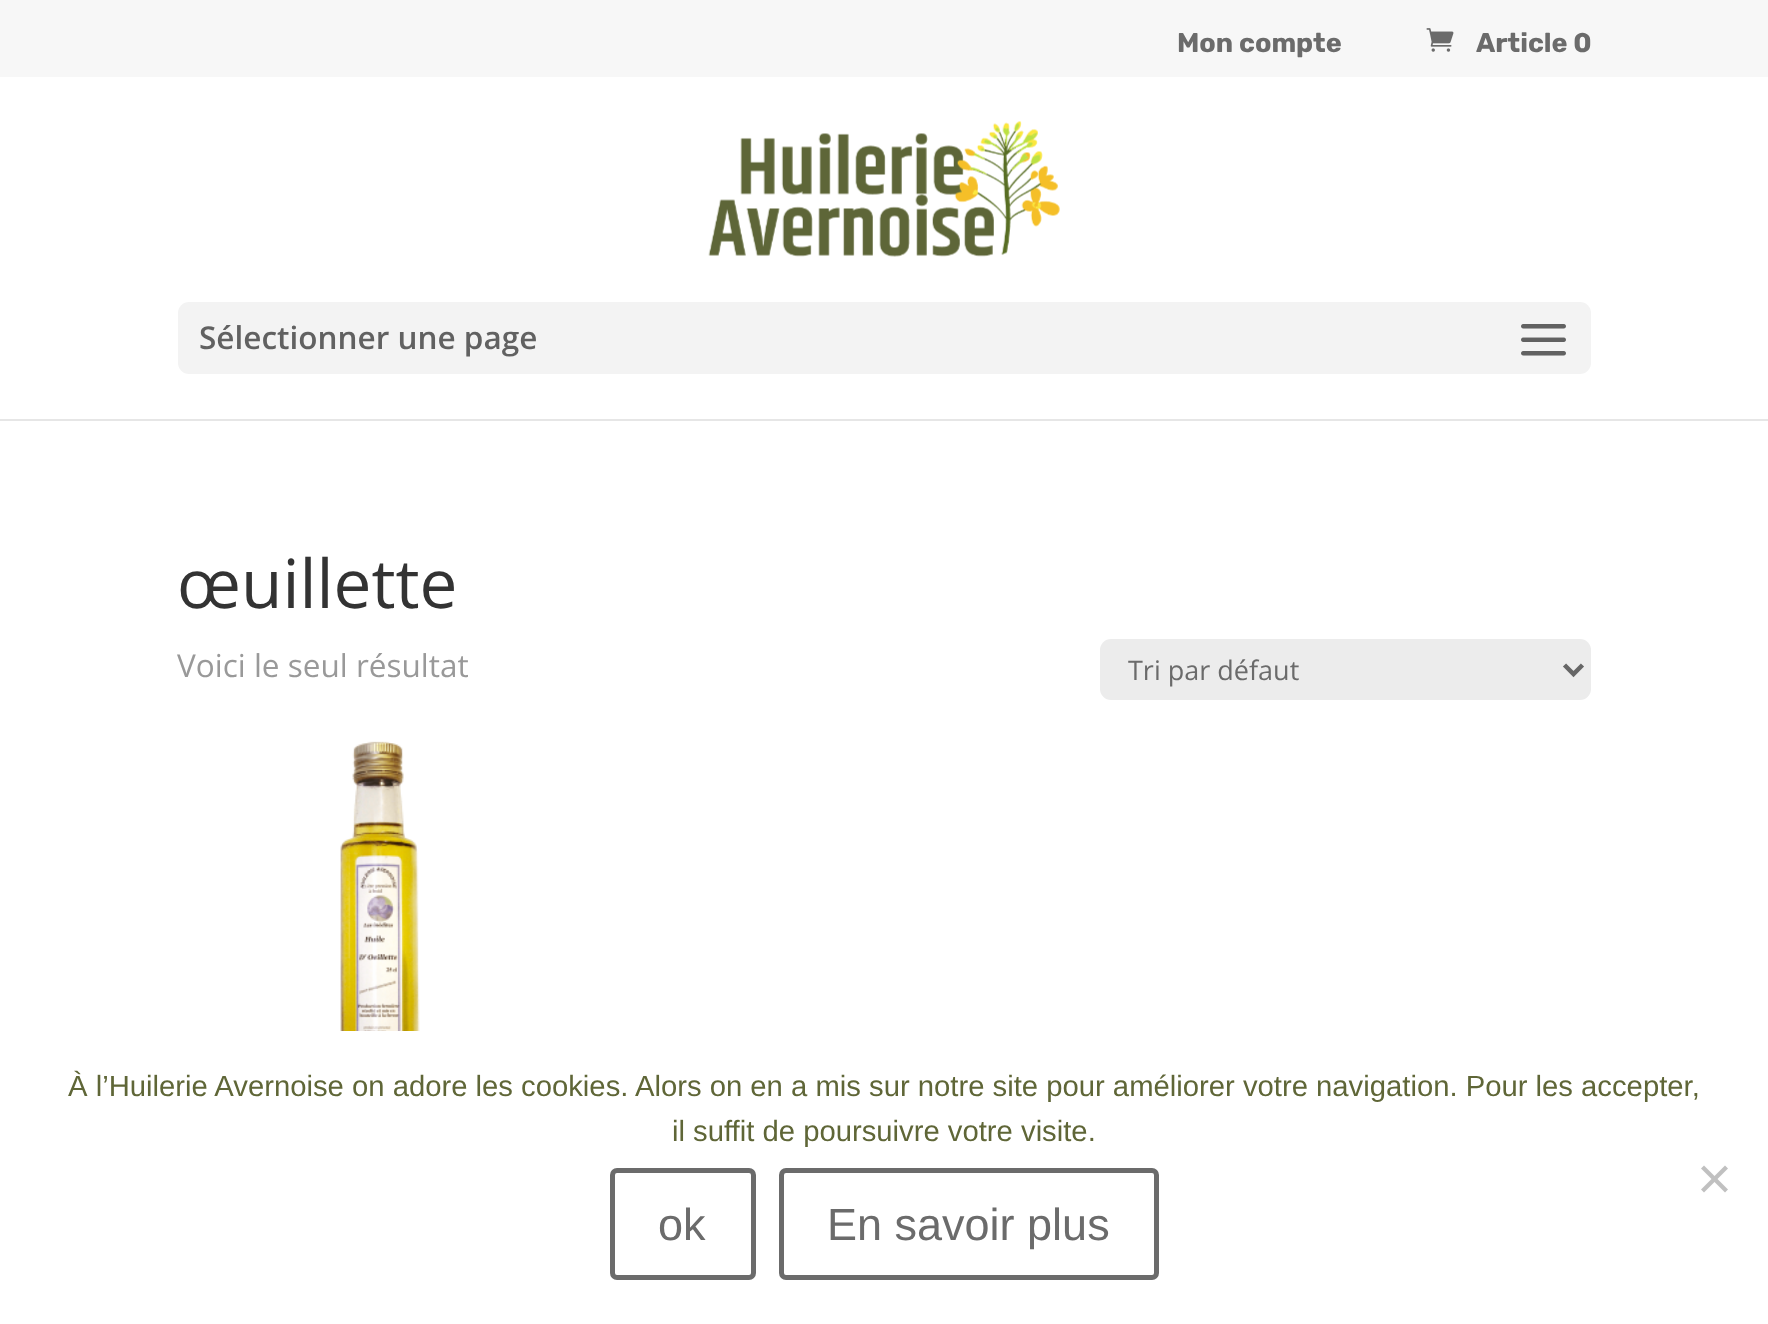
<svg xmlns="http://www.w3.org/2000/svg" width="1768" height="1324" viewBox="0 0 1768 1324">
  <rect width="100%" height="100%" fill="#ffffff"/>
  <rect x="0" y="0" width="1768" height="77" fill="#f7f7f7"/>
  <text x="1177" y="52" font-family="Rubik" font-size="27" font-weight="bold" fill="#6b6b6b">Mon compte</text>
  <image x="1426" y="28" width="28" height="24" href="img1.png"/>
  <text x="1476" y="52" font-family="Rubik" font-size="27" font-weight="bold" fill="#6b6b6b">Article 0</text>
  <path d="M0 418V421H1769V79H1768V418Z" fill="#e6e6e6"/>
  <rect x="0" y="418" width="1768" height="1" fill="#ffffff"/>
  <image x="708" y="121" width="352" height="136" href="img2.png"/>
  <rect x="178" y="302" width="1413" height="72" rx="11" fill="#f3f3f3"/>
  <text x="199" y="349" font-family="Open Sans" font-size="31.5" font-weight="600" fill="#616161">Sélectionner une page</text>
  <image x="1521" y="324" width="45" height="32" href="img3.png"/>
  <text x="177" y="608" font-family="Open Sans" font-size="67.5" fill="#333333">œuillette</text>
  <text x="177" y="677" font-family="Open Sans" font-size="31.5" fill="#999999">Voici le seul résultat</text>
  <rect x="1100" y="639" width="491" height="61" rx="11" fill="#ececec"/>
  <path d="M1564.5 665L1573.5 674L1582.5 665" fill="none" stroke="#666666" stroke-width="4.5"/>
  <text x="1128" y="680" font-family="Open Sans" font-size="27" fill="#6b6b6b">Tri par défaut</text>
  <image x="340" y="741" width="80" height="290" href="img4.png"/>
  <text x="68" y="1096" font-family="Liberation Sans" font-size="29.25" fill="#5f6637">À l’Huilerie Avernoise on adore les cookies. Alors on en a mis sur notre site pour améliorer votre navigation. Pour les accepter,</text>
  <text x="672" y="1141" font-family="Liberation Sans" font-size="29.25" fill="#5f6637">il suffit de poursuivre votre visite.</text>
  <path d="M1725 1165.5L1728 1168.5L1704 1192.5L1701 1189.5Z" fill="#c0c0c0"/>
  <path d="M1701 1168.5L1704 1165.5L1728 1189.5L1725 1192.5Z" fill="#c0c0c0"/>
  <rect x="612.5" y="1170.5" width="141" height="107" rx="4.5" fill="none" stroke="#6b6b6b" stroke-width="5"/>
  <text x="658" y="1240" font-family="Liberation Sans" font-size="45" fill="#6b6b6b">ok</text>
  <rect x="781.5" y="1170.5" width="375" height="107" rx="4.5" fill="none" stroke="#6b6b6b" stroke-width="5"/>
  <text x="827" y="1240" font-family="Liberation Sans" font-size="45" fill="#6b6b6b">En savoir plus</text>
</svg>
